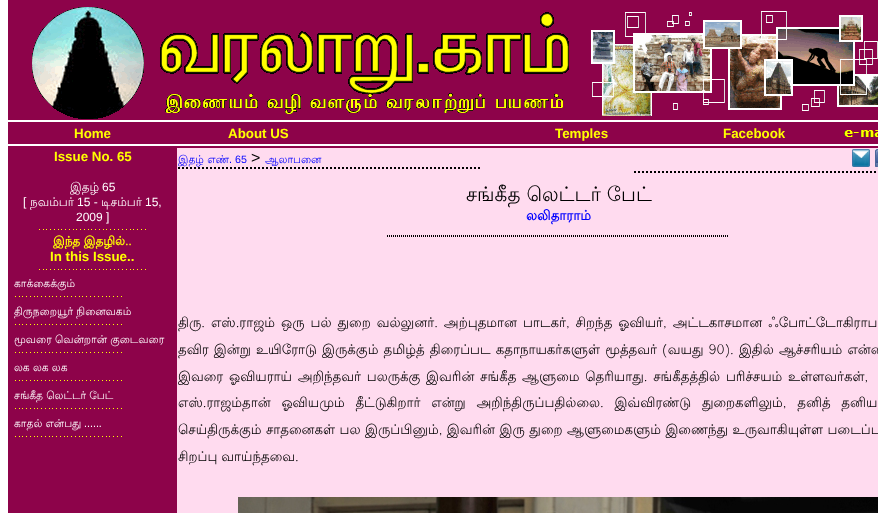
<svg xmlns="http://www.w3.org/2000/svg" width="878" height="513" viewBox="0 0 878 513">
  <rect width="100%" height="100%" fill="#ffffff"/>
  <rect x="8" y="0" width="870" height="120" fill="#8d034a"/>
  <image x="32" y="7" width="112" height="112" href="img1.png"/>
  <image x="160" y="12" width="409" height="102" href="img2.png"/>
  <image x="591" y="11" width="287" height="105" href="img3.png"/>
  <rect x="8" y="122" width="870" height="22" fill="#8d034a"/>
  <text x="74" y="138" font-family="Liberation Sans" font-size="13.33" font-weight="bold" fill="#ffff00">Home</text>
  <text x="228" y="138" font-family="Liberation Sans" font-size="13.33" font-weight="bold" fill="#ffff00">About US</text>
  <text x="555" y="138" font-family="Liberation Sans" font-size="13.33" font-weight="bold" fill="#ffff00">Temples</text>
  <text x="723" y="138" font-family="Liberation Sans" font-size="13.33" font-weight="bold" fill="#ffff00">Facebook</text>
  <image x="844" y="130" width="34" height="7" href="img4.png"/>
  <rect x="8" y="146" width="870" height="367" fill="#8d034a"/>
  <text x="54" y="161" font-family="Liberation Sans" font-size="13.33" font-weight="bold" fill="#ffff00">Issue No. 65</text>
  <text x="70" y="191" font-family="Lohit Tamil" font-size="12" fill="#ffffff">இதழ்</text>
  <text x="102" y="191" font-family="Liberation Sans" font-size="12" fill="#ffffff">65</text>
  <text x="23" y="206" font-family="Liberation Sans" font-size="12" fill="#ffffff">[</text>
  <text x="30" y="206" font-family="Lohit Tamil" font-size="12" fill="#ffffff">நவம்பர்</text>
  <text x="77" y="206" font-family="Liberation Sans" font-size="12" fill="#ffffff">15 -</text>
  <text x="101" y="206" font-family="Lohit Tamil" font-size="12" fill="#ffffff">டிசம்பர்</text>
  <text x="145" y="206" font-family="Liberation Sans" font-size="12" fill="#ffffff">15,</text>
  <text x="76" y="221" font-family="Liberation Sans" font-size="12" fill="#ffffff">2009 ]</text>
  <image x="39" y="229" width="107" height="1" href="img5.png"/>
  <text x="53" y="245" font-family="Lohit Tamil" font-size="12" font-weight="bold" fill="#ffff00">இந்த இதழில்..</text>
  <text x="50" y="261" font-family="Liberation Sans" font-size="13.33" font-weight="bold" fill="#ffff00">In this Issue..</text>
  <image x="39" y="269" width="107" height="1" href="img5.png"/>
  <text x="14" y="287" font-family="Lohit Tamil" font-size="10.7" fill="#ffffff">காக்கைக்கும்</text>
  <image x="15" y="296" width="107" height="1" href="img5.png"/>
  <text x="14" y="315" font-family="Lohit Tamil" font-size="10.7" fill="#ffffff">திருநறையூர் நினைவகம்</text>
  <image x="15" y="324" width="107" height="1" href="img5.png"/>
  <text x="14" y="343" font-family="Lohit Tamil" font-size="10.7" fill="#ffffff">மூவரை வென்றான் குடைவரை</text>
  <image x="15" y="352" width="107" height="1" href="img5.png"/>
  <text x="14" y="371" font-family="Lohit Tamil" font-size="10.7" fill="#ffffff">லக லக லக</text>
  <image x="15" y="380" width="107" height="1" href="img5.png"/>
  <text x="14" y="399" font-family="Lohit Tamil" font-size="10.7" fill="#ffffff">சங்கீத லெட்டர் பேட்</text>
  <image x="15" y="408" width="107" height="1" href="img5.png"/>
  <text x="14" y="427" font-family="Lohit Tamil" font-size="10.7" fill="#ffffff">காதல் என்பது</text>
  <text x="84" y="427" font-family="Liberation Sans" font-size="10.7" fill="#ffffff">......</text>
  <image x="15" y="436" width="107" height="1" href="img5.png"/>
  <rect x="177" y="148" width="701" height="365" fill="#ffdbef"/>
  <path d="M178 168H482" fill="none" stroke="#000000" stroke-width="2" stroke-dasharray="2 2"/>
  <text x="178" y="163" font-family="Lohit Tamil" font-size="10.7" fill="#0000ff">இதழ் எண்</text>
  <text x="229" y="163" font-family="Liberation Sans" font-size="10.7" fill="#0000ff">. 65</text>
  <text x="251" y="163" font-family="Liberation Sans" font-size="16" fill="#000000">&gt;</text>
  <text x="265" y="163" font-family="Lohit Tamil" font-size="10.7" fill="#0000ff">ஆலாபனை</text>
  <path d="M634 172H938" fill="none" stroke="#000000" stroke-width="2" stroke-dasharray="2 2"/>
  <image x="852" y="149" width="18" height="18" href="img6.png"/>
  <image x="875" y="149" width="3" height="18" href="img7.png"/>
  <text x="466" y="201" font-family="Lohit Tamil" font-size="20" fill="#000000">சங்கீத லெட்டர் பேட்</text>
  <text x="526" y="220" font-family="Lohit Tamil" font-size="13.33" font-weight="bold" fill="#0000ff">லலிதாராம்</text>
  <path d="M387 235.5H729" fill="none" stroke="#000000" stroke-dasharray="1 1"/>
  <path d="M387 236.5H729" fill="none" stroke="#000000" stroke-dasharray="1 1"/>
  <text x="178" y="327" word-spacing="2" font-family="Lohit Tamil" font-size="13.33" fill="#000000">திரு. எஸ்.ராஜம் ஒரு பல் துறை வல்லுனர். அற்புதமான பாடகர், சிறந்த ஓவியர், அட்டகாசமான ஃபோட்டோகிராப</text>
  <text x="178" y="354" word-spacing="1.1" font-family="Lohit Tamil" font-size="13.33" fill="#000000">தவிர இன்று உயிரோடு இருக்கும் தமிழ்த் திரைப்பட கதாநாயகர்களுள் மூத்தவர் (வயது 90). இதில் ஆச்சரியம் என்ன</text>
  <text x="178" y="381" word-spacing="1.75" font-family="Lohit Tamil" font-size="13.33" fill="#000000">இவரை ஓவியராய் அறிந்தவர் பலருக்கு இவரின் சங்கீத ஆளுமை தெரியாது. சங்கீதத்தில் பரிச்சயம் உள்ளவர்கள்,</text>
  <text x="178" y="407" word-spacing="6.75" font-family="Lohit Tamil" font-size="13.33" fill="#000000">எஸ்.ராஜம்தான் ஓவியமும் தீட்டுகிறார் என்று அறிந்திருப்பதில்லை. இவ்விரண்டு துறைகளிலும், தனித் தனியா</text>
  <text x="178" y="434" word-spacing="0.5" font-family="Lohit Tamil" font-size="13.33" fill="#000000">செய்திருக்கும் சாதனைகள் பல இருப்பினும், இவரின் இரு துறை ஆளுமைகளும் இணைந்து உருவாகியுள்ள படைப்ப</text>
  <text x="178" y="461" font-family="Lohit Tamil" font-size="13.33" fill="#000000">சிறப்பு வாய்ந்தவை.</text>
  <image x="238" y="497" width="640" height="16" href="img8.png"/>
</svg>
